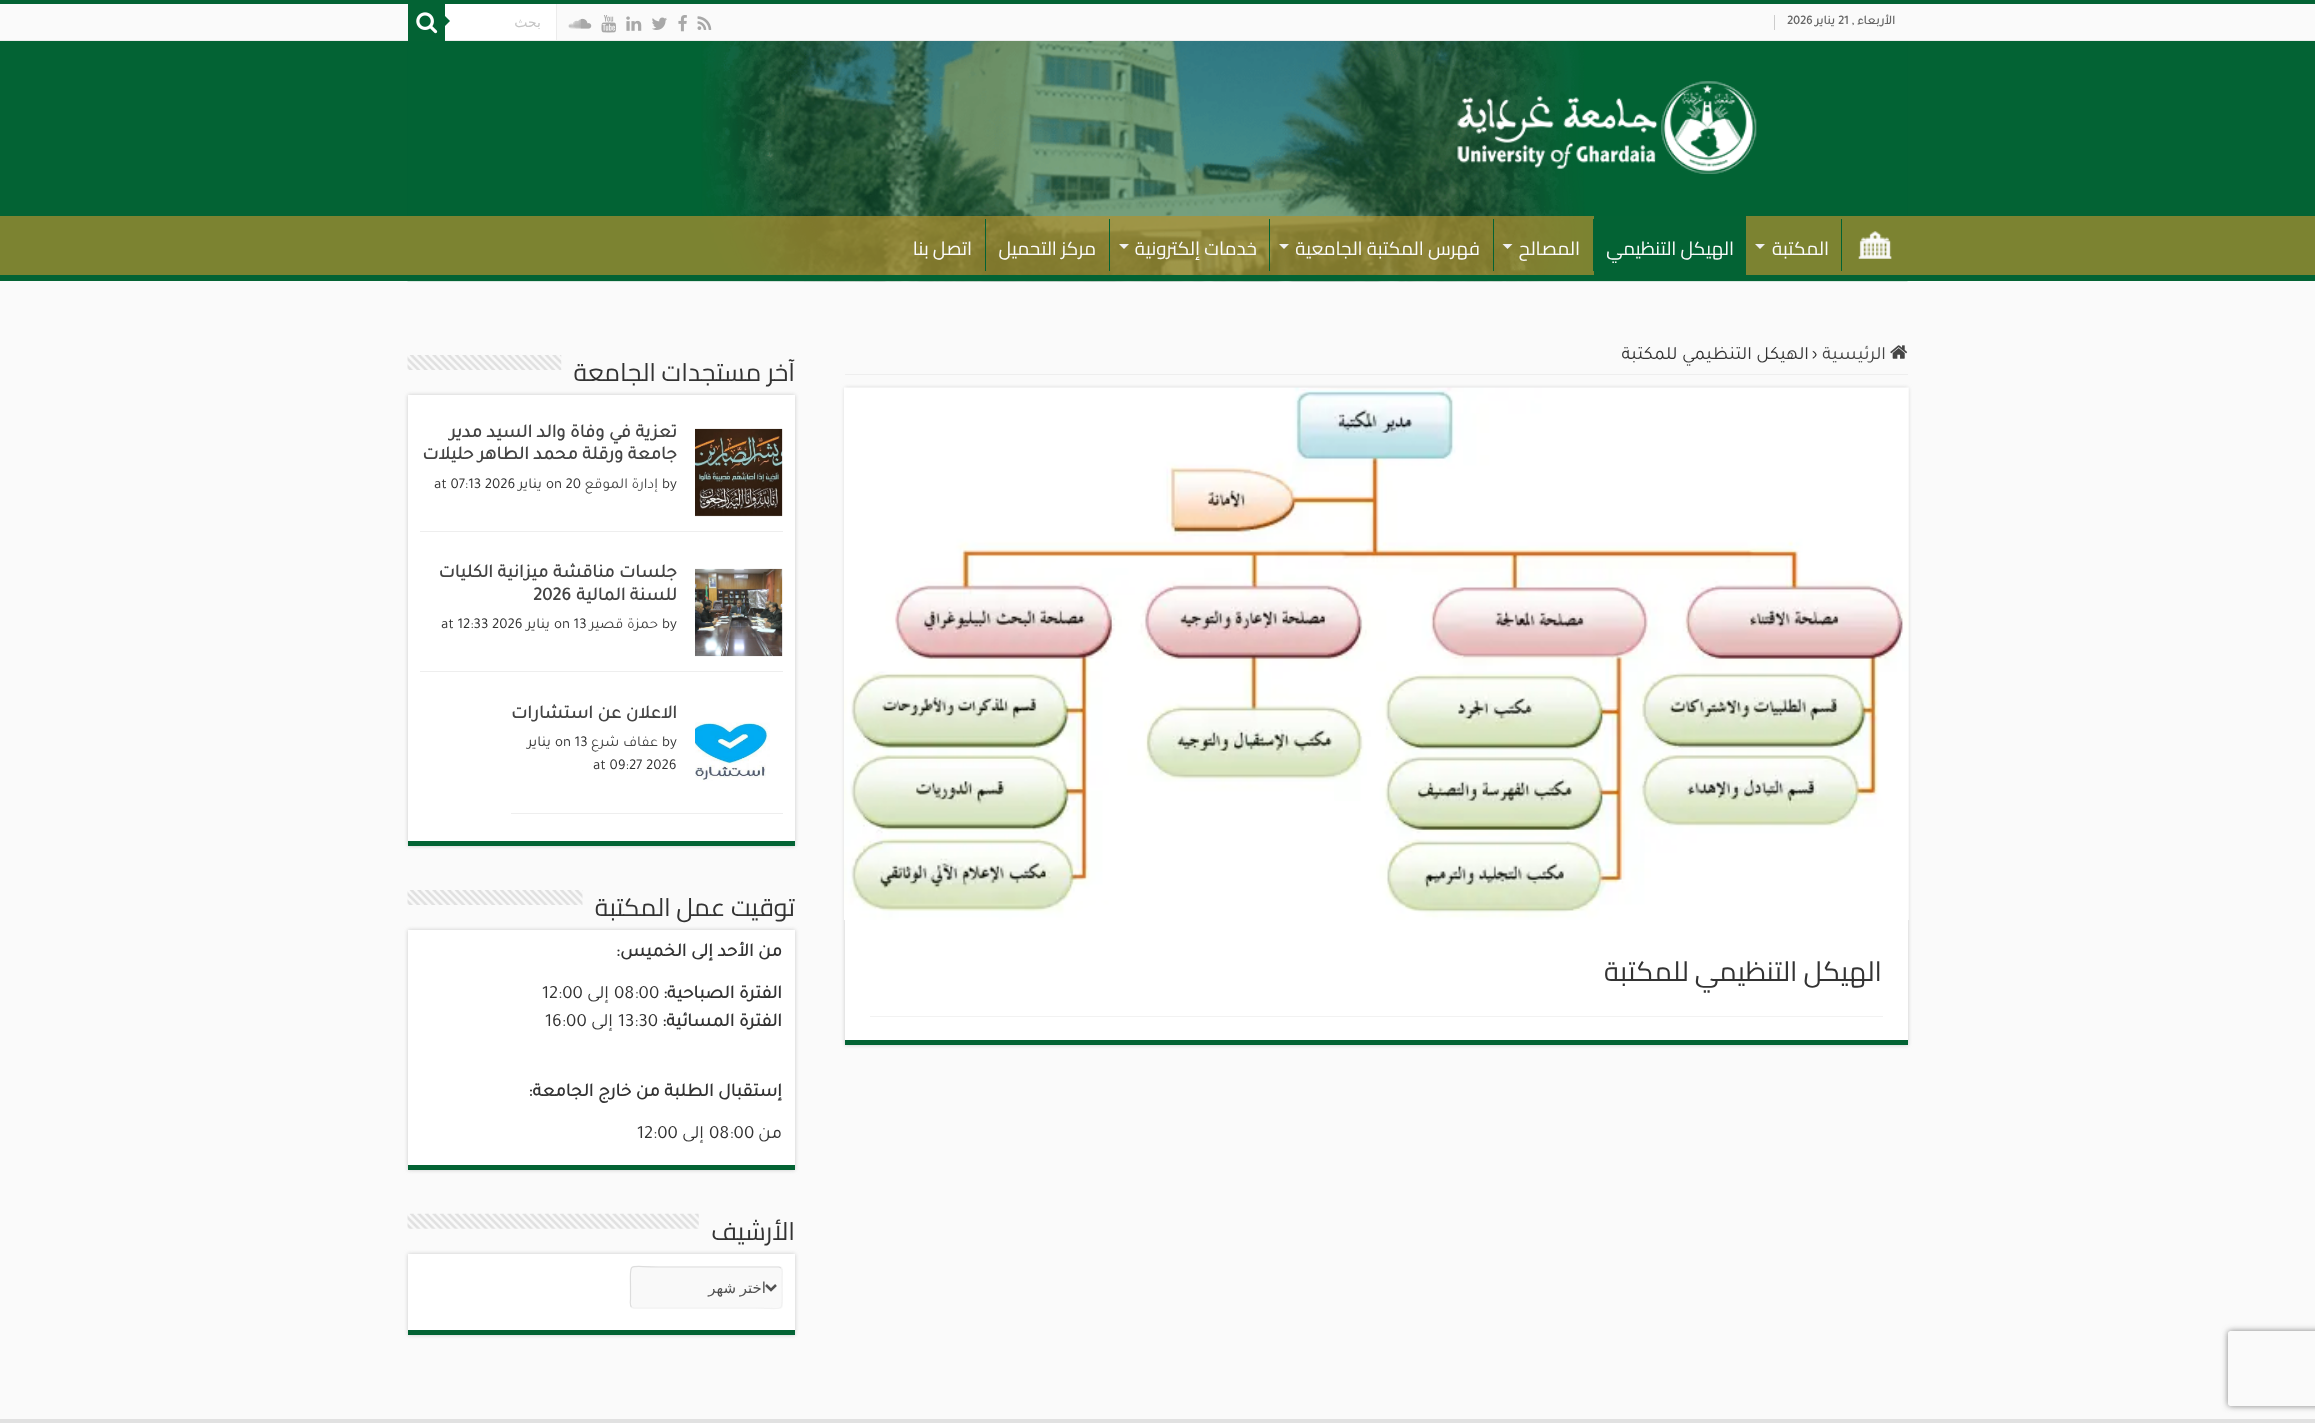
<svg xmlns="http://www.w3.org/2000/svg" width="2315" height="1423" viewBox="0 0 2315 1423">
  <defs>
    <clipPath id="clip1"><rect x="0" y="216" width="2315" height="59"/></clipPath>
    <filter id="blur1" x="-50%" y="-200%" width="200%" height="500%"><feGaussianBlur stdDeviation="2"/></filter>
    <clipPath id="clip2"><path d="M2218 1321H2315V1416H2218ZM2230.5 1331H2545.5C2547 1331 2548 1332 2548 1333.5V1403.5C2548 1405 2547 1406 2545.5 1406H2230.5C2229 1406 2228 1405 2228 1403.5V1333.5C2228 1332 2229 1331 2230.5 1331Z" clip-rule="evenodd"/></clipPath>
    <filter id="blur2" x="-50%" y="-200%" width="200%" height="500%"><feGaussianBlur stdDeviation="3"/></filter>
  </defs>
  <rect width="100%" height="100%" fill="#fafafa"/>
  <rect x="0" y="41" width="2315" height="234" fill="#036334"/>
  <image x="407" y="41" width="1501" height="241" href="img1.png"/>
  <rect x="0" y="0" width="2315" height="4" fill="#036334"/>
  <rect x="0" y="40" width="2315" height="1" fill="#ececec"/>
  <rect x="1774" y="15" width="1" height="15" fill="#cccccc"/>
  <text x="1895" y="24" font-family="Tajawal" font-size="12.5" font-weight="bold" direction="rtl" fill="#666666">الأربعاء ,</text>
  <text x="1838" y="24" font-family="Tajawal" font-size="12.5" font-weight="bold" fill="#666666">21</text>
  <text x="1835" y="24" font-family="Tajawal" font-size="12.5" font-weight="bold" direction="rtl" fill="#666666">يناير</text>
  <text x="1787" y="24" font-family="Tajawal" font-size="12.5" font-weight="bold" fill="#666666">2026</text>
  <image x="697" y="16" width="15" height="14" href="img2.png"/>
  <image x="678" y="15" width="9" height="17" href="img3.png"/>
  <image x="652" y="17" width="15" height="13" href="img4.png"/>
  <image x="626" y="16" width="16" height="15" href="img5.png"/>
  <image x="601" y="15" width="15" height="18" href="img6.png"/>
  <image x="568" y="18" width="24" height="11" href="img7.png"/>
  <rect x="445" y="4" width="111" height="36" fill="#ffffff"/>
  <rect x="556" y="4" width="1" height="36" fill="#ececec"/>
  <text x="541" y="27" font-family="DejaVu Sans" font-size="14" direction="rtl" fill="#c5c5c5">بحث</text>
  <rect x="408" y="4" width="37" height="37" fill="#036334"/>
  <image x="416" y="12" width="22" height="22" href="img8.png"/>
  <path d="M445 26V16L450 21Z" fill="#036334"/>
  <image x="1457" y="81" width="300" height="93" href="img9.png"/>
  <rect x="0" y="216" width="2315" height="59" fill="#b09230" fill-opacity="0.7"/>
  <g clip-path="url(#clip1)">
    <path d="M-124 92H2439V399H-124ZM-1 216H2314C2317 216 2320 219 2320 222V281C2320 285 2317 288 2314 288H-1C-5 288-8 285-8 281V222C-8 219-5 216-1 216Z" fill="#3c9be3" fill-rule="evenodd"/>
  </g>
  <rect x="0" y="275" width="2315" height="6" fill="#036334"/>
  <image x="1858" y="231" width="34" height="28" href="img10.png"/>
  <rect x="1841" y="219" width="1" height="52" fill="#036334"/>
  <text x="1829" y="255" font-family="Cairo" font-size="18.75" direction="rtl" fill="#fbfbfb">المكتبة</text>
  <path d="M1755 244H1765L1760 249Z" fill="#f0f0f0"/>
  <rect x="1594" y="216" width="152" height="59" fill="#036334"/>
  <text x="1734" y="255" font-family="Cairo" font-size="18.75" direction="rtl" fill="#fbfbfb">الهيكل التنظيمي</text>
  <rect x="1593" y="219" width="1" height="52" fill="#036334"/>
  <text x="1580" y="255" font-family="Cairo" font-size="18.75" direction="rtl" fill="#fbfbfb">المصالح</text>
  <path d="M1502.5 244H1512.5L1507.5 249Z" fill="#f0f0f0"/>
  <rect x="1493" y="219" width="1" height="52" fill="#036334"/>
  <text x="1480" y="255" font-family="Cairo" font-size="18.75" direction="rtl" fill="#fbfbfb">فهرس المكتبة الجامعية</text>
  <path d="M1279 244H1289L1284 249Z" fill="#f0f0f0"/>
  <rect x="1269" y="219" width="1" height="52" fill="#036334"/>
  <text x="1257" y="255" font-family="Cairo" font-size="18.75" direction="rtl" fill="#fbfbfb">خدمات إلكترونية</text>
  <path d="M1119 244H1129L1124 249Z" fill="#f0f0f0"/>
  <rect x="1109" y="219" width="1" height="52" fill="#036334"/>
  <text x="1096" y="255" font-family="Cairo" font-size="18.75" direction="rtl" fill="#fbfbfb">مركز التحميل</text>
  <rect x="985" y="219" width="1" height="52" fill="#036334"/>
  <text x="972" y="255" font-family="Cairo" font-size="18.75" direction="rtl" fill="#fbfbfb">اتصل بنا</text>
  <rect x="845" y="374" width="1063" height="1" fill="#eeeeee"/>
  <image x="1890" y="345" width="18" height="14" href="img11.png"/>
  <text x="1886" y="359" font-family="Tajawal" font-size="18.75" direction="rtl" fill="#444444">الرئيسية</text>
  <text x="1812" y="359" font-family="Tajawal" font-size="18.75" fill="#333333">›</text>
  <text x="1809" y="359" font-family="Tajawal" font-size="18.75" direction="rtl" fill="#333333">الهيكل التنظيمي للمكتبة</text>
  <rect x="845" y="388" width="1063" height="657" fill="#cacaca" filter="url(#blur1)"/>
  <rect x="845" y="920" width="1063" height="120" fill="#ffffff"/>
  <rect x="845" y="1040" width="1063" height="5" fill="#036334"/>
  <image x="844" y="387" width="1065" height="533" href="img12.png"/>
  <text x="1882" y="981" font-family="Cairo" font-size="27.5" direction="rtl" fill="#333333">الهيكل التنظيمي للمكتبة</text>
  <rect x="870" y="1016" width="1013" height="1" fill="#f2f2f2"/>
  <text x="795" y="381" font-family="Cairo" font-size="25" direction="rtl" fill="#333333">آخر مستجدات الجامعة</text>
  <image x="407" y="355" width="155" height="15" href="img13.png"/>
  <rect x="408" y="395" width="387" height="451" fill="#cacaca" filter="url(#blur1)"/>
  <rect x="408" y="395" width="387" height="446" fill="#ffffff"/>
  <rect x="408" y="841" width="387" height="5" fill="#036334"/>
  <rect x="420" y="531" width="363" height="1" fill="#eeeeee"/>
  <image x="695" y="428" width="88" height="89" href="img14.png"/>
  <text x="677" y="437" font-family="Tajawal" font-size="18.75" font-weight="bold" direction="rtl" fill="#444444">تعزية في وفاة والد السيد مدير</text>
  <text x="677" y="459" font-family="Tajawal" font-size="18.75" font-weight="bold" direction="rtl" fill="#444444">جامعة ورقلة محمد الطاهر حليلات</text>
  <text x="662" y="488" font-family="Tajawal" font-size="15" fill="#333333">by</text>
  <text x="658" y="488" font-family="Tajawal" font-size="15" direction="rtl" fill="#444444">إدارة الموقع</text>
  <text x="546" y="488" font-family="Tajawal" font-size="15" fill="#333333">on 20</text>
  <text x="542" y="488" font-family="Tajawal" font-size="15" direction="rtl" fill="#333333">يناير</text>
  <text x="434" y="488" font-family="Tajawal" font-size="15" fill="#333333">at 07:13 2026</text>
  <rect x="420" y="671" width="363" height="1" fill="#eeeeee"/>
  <image x="695" y="568" width="88" height="89" href="img15.png"/>
  <text x="677" y="577" font-family="Tajawal" font-size="18.75" font-weight="bold" direction="rtl" fill="#444444">جلسات مناقشة ميزانية الكليات</text>
  <text x="677" y="600" font-family="Tajawal" font-size="18.75" font-weight="bold" direction="rtl" fill="#444444">للسنة المالية</text>
  <text x="533" y="600" font-family="Tajawal" font-size="18.75" font-weight="bold" fill="#444444">2026</text>
  <text x="662" y="628" font-family="Tajawal" font-size="15" fill="#333333">by</text>
  <text x="658" y="628" font-family="Tajawal" font-size="15" direction="rtl" fill="#444444">حمزة قصير</text>
  <text x="554" y="628" font-family="Tajawal" font-size="15" fill="#333333">on 13</text>
  <text x="550" y="628" font-family="Tajawal" font-size="15" direction="rtl" fill="#333333">يناير</text>
  <text x="441" y="628" font-family="Tajawal" font-size="15" fill="#333333">at 12:33 2026</text>
  <rect x="511" y="813" width="272" height="1" fill="#eeeeee"/>
  <text x="677" y="718" font-family="Tajawal" font-size="18.75" font-weight="bold" direction="rtl" fill="#444444">الاعلان عن استشارات</text>
  <image x="695" y="722" width="75" height="60" href="img16.png"/>
  <text x="662" y="746" font-family="Tajawal" font-size="15" fill="#333333">by</text>
  <text x="658" y="746" font-family="Tajawal" font-size="15" direction="rtl" fill="#444444">عفاف شرع</text>
  <text x="555" y="746" font-family="Tajawal" font-size="15" fill="#333333">on 13</text>
  <text x="551" y="746" font-family="Tajawal" font-size="15" direction="rtl" fill="#333333">يناير</text>
  <text x="593" y="769" font-family="Tajawal" font-size="15" fill="#333333">at 09:27 2026</text>
  <text x="795" y="916" font-family="Cairo" font-size="25" direction="rtl" fill="#333333">توقيت عمل المكتبة</text>
  <image x="407" y="890" width="176" height="15" href="img17.png"/>
  <rect x="408" y="930" width="387" height="240" fill="#cacaca" filter="url(#blur1)"/>
  <rect x="408" y="930" width="387" height="235" fill="#ffffff"/>
  <rect x="408" y="1165" width="387" height="5" fill="#036334"/>
  <text x="782" y="956" font-family="Tajawal" font-size="18.75" font-weight="bold" direction="rtl" fill="#333333">من الأحد إلى الخميس:</text>
  <text x="782" y="998" font-family="Tajawal" font-size="18.75" font-weight="bold" direction="rtl" fill="#333333">الفترة الصباحية:</text>
  <text x="614" y="998" font-family="Tajawal" font-size="18.75" fill="#333333">08:00</text>
  <text x="609" y="998" font-family="Tajawal" font-size="18.75" direction="rtl" fill="#333333">إلى</text>
  <text x="542" y="998" font-family="Tajawal" font-size="18.75" fill="#333333">12:00</text>
  <text x="782" y="1026" font-family="Tajawal" font-size="18.75" font-weight="bold" direction="rtl" fill="#333333">الفترة المسائية:</text>
  <text x="618" y="1026" font-family="Tajawal" font-size="18.75" fill="#333333">13:30</text>
  <text x="613" y="1026" font-family="Tajawal" font-size="18.75" direction="rtl" fill="#333333">إلى</text>
  <text x="545" y="1026" font-family="Tajawal" font-size="18.75" fill="#333333">16:00</text>
  <text x="782" y="1096" font-family="Tajawal" font-size="18.75" font-weight="bold" direction="rtl" fill="#333333">إستقبال الطلبة من خارج الجامعة:</text>
  <text x="782" y="1138" font-family="Tajawal" font-size="18.75" direction="rtl" fill="#333333">من</text>
  <text x="709" y="1138" font-family="Tajawal" font-size="18.75" fill="#333333">08:00</text>
  <text x="704" y="1138" font-family="Tajawal" font-size="18.75" direction="rtl" fill="#333333">إلى</text>
  <text x="637" y="1138" font-family="Tajawal" font-size="18.75" fill="#333333">12:00</text>
  <text x="795" y="1240" font-family="Cairo" font-size="25" direction="rtl" fill="#333333">الأرشيف</text>
  <image x="407" y="1213" width="292" height="16" href="img18.png"/>
  <rect x="408" y="1254" width="387" height="81" fill="#cacaca" filter="url(#blur1)"/>
  <rect x="408" y="1254" width="387" height="76" fill="#ffffff"/>
  <rect x="408" y="1330" width="387" height="5" fill="#036334"/>
  <rect x="630" y="1266" width="153" height="43" rx="4" fill="#f9f9f9"/>
  <path d="M781 1268C783 1269.5 782 1274.5 782 1276V1287.5C782 1314.5 786 1308 754.5 1308H634L631.5 1307" fill="none" stroke="#f1f1f1" stroke-width="1.2"/>
  <path d="M631.5 1307C629.5 1305.5 630.5 1300.5 630.5 1299V1287.5C630.5 1260.5 626.5 1267 658 1267H779L781 1268" fill="none" stroke="#dddddd" stroke-width="1.2"/>
  <path d="M766 1285L771 1290L776 1285" fill="none" stroke="#515151" stroke-width="2.5"/>
  <text x="766" y="1293" word-spacing="-1" font-family="DejaVu Sans" font-size="15" direction="rtl" fill="#515151">اختر شهر</text>
  <rect x="0" y="1419" width="2315" height="4" fill="#e1e1e1"/>
  <g clip-path="url(#clip2)">
    <rect x="2228" y="1331" width="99" height="75" rx="2.5" fill="#808080" filter="url(#blur2)"/>
  </g>
</svg>
